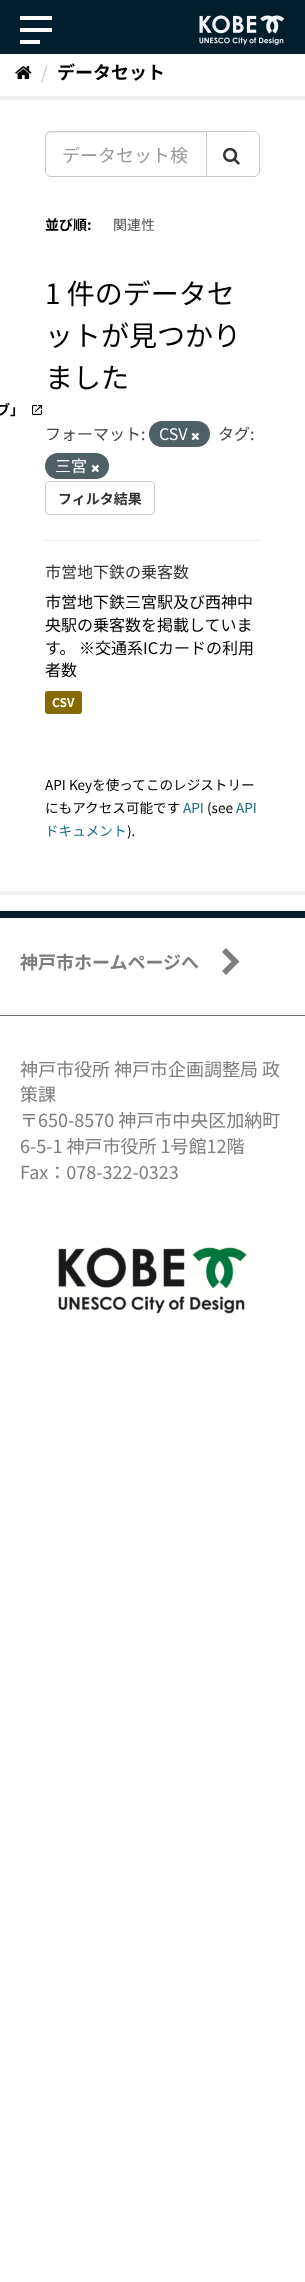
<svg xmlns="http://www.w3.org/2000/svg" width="305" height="2282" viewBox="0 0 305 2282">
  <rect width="100%" height="100%" fill="#ffffff"/>
  <rect x="0" y="0" width="305" height="54" fill="#021d2e"/>
  <rect x="20" y="16" width="32" height="4" fill="#ffffff"/>
  <rect x="20" y="28" width="32" height="4" fill="#ffffff"/>
  <rect x="20" y="40" width="20" height="4" fill="#ffffff"/>
  <image x="199" y="15" width="86" height="30" href="img1.png"/>
  <rect x="-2" y="98" width="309" height="795" fill="none" stroke="#f2f2f2" stroke-width="4"/>
  <text x="-4" y="415" font-family="'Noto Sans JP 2'" font-size="14" font-weight="bold" fill="#000000">ブ」</text>
  <image x="32" y="405" width="10" height="10" href="img2.png"/>
  <image x="15" y="66" width="17" height="13" href="img3.png"/>
  <text x="41" y="79" font-family="Noto Sans JP" font-size="18" fill="#cccccc">/</text>
  <text x="57" y="79" font-family="Noto Sans JP" font-size="18" font-weight="bold" fill="#000000">データセット</text>
  <path d="M45 540.5H260" fill="none" stroke="#dddddd" stroke-dasharray="1 1"/>
  <path d="M51 133H206V132H51C48 132 46 134 46 137V138C46 135 48 133 51 133Z" fill="#ececec"/>
  <path d="M51 131.5H206.5V176.5H51C48 176.5 45.5 174 45.5 171V137C45.5 134 48 131.5 51 131.5Z" fill="none" stroke="#cccccc"/>
  <text x="62" y="162" font-family="Noto Sans JP" font-size="18" fill="#999999">データセット検</text>
  <path d="M206.5 131.5H254C257 131.5 259.5 134 259.5 137V171C259.5 174 257 176.5 254 176.5H206.5Z" fill="#ffffff" stroke="#cccccc"/>
  <image x="223" y="147" width="17" height="18" href="img4.png"/>
  <text x="45" y="230" font-family="Noto Sans JP" font-size="14" font-weight="bold" fill="#000000">並び順:</text>
  <text x="113" y="230" font-family="Noto Sans JP" font-size="14" fill="#555555">関連性</text>
  <text x="45" y="304" font-family="Noto Sans JP" font-size="28" fill="#000000">1 件のデータセ</text>
  <text x="45" y="346" font-family="Noto Sans JP" font-size="28" fill="#000000">ットが見つかり</text>
  <text x="45" y="388" font-family="Noto Sans JP" font-size="28" fill="#000000">ました</text>
  <text x="45" y="440" font-family="Noto Sans JP" font-size="16" fill="#444444">フォーマット:</text>
  <rect x="149" y="421" width="61" height="26" rx="13" fill="#4e5f65"/>
  <text x="159" y="440" font-family="Noto Sans JP" font-size="16" fill="#ffffff">CSV</text>
  <image x="191" y="432" width="8" height="9" href="img5.png"/>
  <text x="218" y="440" font-family="Noto Sans JP" font-size="16" fill="#444444">タグ:</text>
  <rect x="45" y="453" width="64" height="26" rx="13" fill="#4e5f65"/>
  <text x="55" y="472" font-family="Noto Sans JP" font-size="16" fill="#ffffff">三宮</text>
  <image x="91" y="464" width="8" height="9" href="img5.png"/>
  <rect x="45.5" y="481.5" width="109" height="33" rx="3.5" fill="none" stroke="#cccccc"/>
  <text x="58" y="504" font-family="Noto Sans JP" font-size="14" font-weight="bold" fill="#333333">フィルタ結果</text>
  <text x="45" y="578" font-family="Noto Sans JP" font-size="16" fill="#333333">市営地下鉄の乗客数</text>
  <text x="45" y="608" font-family="Noto Sans JP" font-size="16" fill="#000000">市営地下鉄三宮駅及び西神中</text>
  <text x="45" y="631" font-family="Noto Sans JP" font-size="16" fill="#000000">央駅の乗客数を掲載していま</text>
  <text x="45" y="654" font-family="Noto Sans JP" font-size="16" fill="#000000">す。 ※交通系ICカードの利用</text>
  <text x="45" y="676" font-family="Noto Sans JP" font-size="16" fill="#000000">者数</text>
  <rect x="45" y="691" width="37" height="23" rx="3" fill="#856a00"/>
  <text x="52" y="707" font-family="Noto Sans JP" font-size="12" font-weight="bold" fill="#ffffff">CSV</text>
  <text x="45" y="790" font-family="Noto Sans JP" font-size="13.6" fill="#000000">API Keyを使ってこのレジストリー</text>
  <text x="45" y="813" font-family="Noto Sans JP" font-size="13.6" fill="#000000">にもアクセス可能です</text>
  <text x="183" y="813" font-family="Noto Sans JP" font-size="13.6" fill="#206b82">API</text>
  <text x="207" y="813" font-family="Noto Sans JP" font-size="13.6" fill="#000000">(see</text>
  <text x="236" y="813" font-family="Noto Sans JP" font-size="13.6" fill="#206b82">API</text>
  <text x="45" y="836" font-family="Noto Sans JP" font-size="13.6" fill="#206b82">ドキュメント</text>
  <text x="127" y="836" font-family="Noto Sans JP" font-size="13.6" fill="#000000">).</text>
  <rect x="0" y="911" width="305" height="7" fill="#021d2e"/>
  <path d="M239.5 961.5L226 975L222 971L231.5 961.5L222 952L226 948Z" fill="#7d7d7d"/>
  <text x="20" y="969" font-family="Noto Sans JP" font-size="18" font-weight="bold" fill="#7d7d7d">神戸市ホームページへ</text>
  <rect x="0" y="1015" width="305" height="1" fill="#707070"/>
  <text x="20" y="1076" font-family="Noto Sans JP" font-size="18" fill="#7d7d7d">神戸市役所 神戸市企画調整局 政</text>
  <text x="20" y="1101" font-family="Noto Sans JP" font-size="18" fill="#7d7d7d">策課</text>
  <text x="20" y="1127" font-family="Noto Sans JP" font-size="18" fill="#7d7d7d">〒650-8570 神戸市中央区加納町</text>
  <text x="20" y="1153" font-family="Noto Sans JP" font-size="18" fill="#7d7d7d">6-5-1 神戸市役所 1号館12階</text>
  <text x="20" y="1179" font-family="Noto Sans JP" font-size="18" fill="#7d7d7d">Fax：078-322-0323</text>
  <image x="58" y="1246" width="189" height="69" href="img6.png"/>
</svg>
